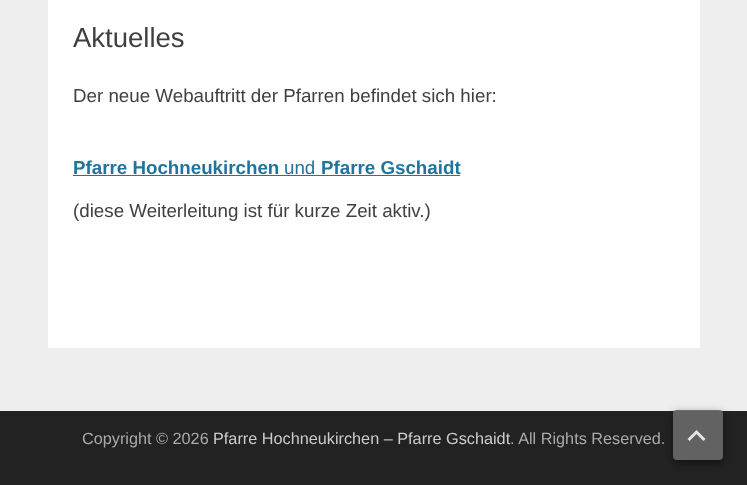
<svg xmlns="http://www.w3.org/2000/svg" width="747" height="485" viewBox="0 0 747 485">
  <defs>
    <clipPath id="clip1"><path d="M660 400H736V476H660ZM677 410H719C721 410 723 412 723 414V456C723 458 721 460 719 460H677C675 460 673 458 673 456V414C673 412 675 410 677 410Z" clip-rule="evenodd"/></clipPath>
    <filter id="blur1" x="-50%" y="-200%" width="200%" height="500%"><feGaussianBlur stdDeviation="4"/></filter>
  </defs>
  <rect width="100%" height="100%" fill="#eeeeee"/>
  <rect x="48" y="0" width="652" height="348" fill="#ffffff"/>
  <text x="73" y="47" font-family="Liberation Sans" font-size="27.5" fill="#404040">Aktuelles</text>
  <text x="73" y="102" font-family="Liberation Sans" font-size="18.75" fill="#404040">Der neue Webauftritt der Pfarren befindet sich hier:</text>
  <text x="73" y="174" font-family="Liberation Sans" font-size="18.75" font-weight="bold" fill="#21759b">Pfarre Hochneukirchen</text>
  <rect x="73" y="175" width="387" height="1" fill="#21759b"/>
  <text x="284" y="174" font-family="Liberation Sans" font-size="18.75" fill="#21759b">und</text>
  <text x="321" y="174" font-family="Liberation Sans" font-size="18.75" font-weight="bold" fill="#21759b">Pfarre Gschaidt</text>
  <text x="73" y="217" font-family="Liberation Sans" font-size="18.75" fill="#404040">(diese Weiterleitung ist für kurze Zeit aktiv.)</text>
  <rect x="0" y="411" width="747" height="74" fill="#222222"/>
  <text x="82" y="444" font-family="Liberation Sans" font-size="16.25" fill="#aaaaaa">Copyright © 2026</text>
  <text x="213" y="444" font-family="Liberation Sans" font-size="16.25" fill="#cccccc">Pfarre Hochneukirchen – Pfarre Gschaidt</text>
  <text x="510" y="444" font-family="Liberation Sans" font-size="16.25" fill="#aaaaaa">. All Rights Reserved.</text>
  <g clip-path="url(#clip1)">
    <rect x="673" y="413" width="50" height="50" rx="4" fill="#000000" fill-opacity="0.48" filter="url(#blur1)"/>
  </g>
  <rect x="673" y="410" width="50" height="50" rx="4" fill="#666666" fill-opacity="0.95"/>
  <path d="M703.5 441L696.5 434L689.5 441L687.5 439L696.5 430L705.5 439Z" fill="#e5e5e5"/>
</svg>
